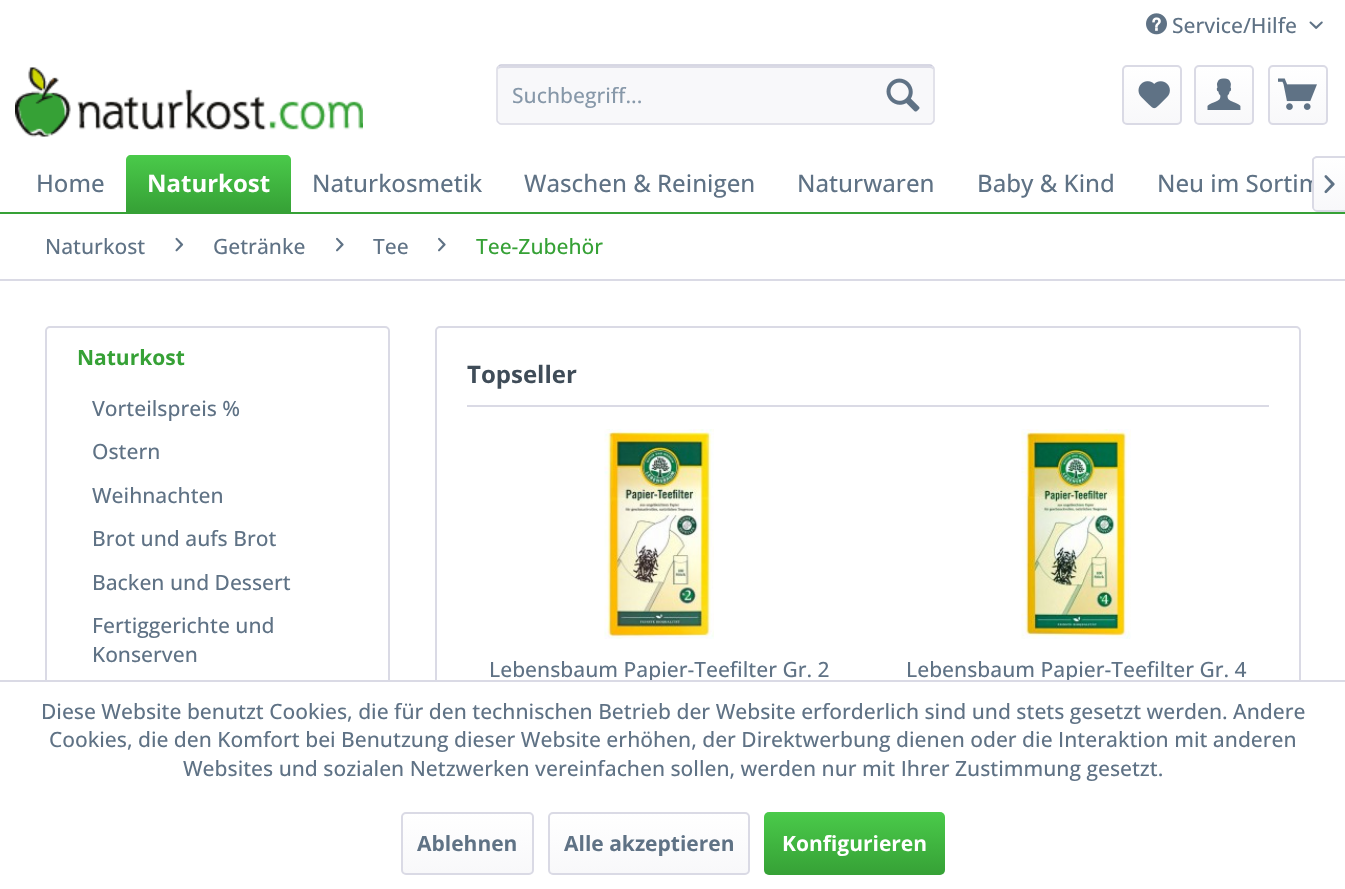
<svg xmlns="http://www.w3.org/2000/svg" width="1345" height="889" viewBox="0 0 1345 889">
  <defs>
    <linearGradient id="g1" gradientUnits="userSpaceOnUse" x1="1152" y1="66" x2="1152" y2="123"><stop offset="0" stop-color="#ffffff"/><stop offset="1" stop-color="#f8f8fa"/></linearGradient>
    <linearGradient id="g2" gradientUnits="userSpaceOnUse" x1="1224" y1="66" x2="1224" y2="123"><stop offset="0" stop-color="#ffffff"/><stop offset="1" stop-color="#f8f8fa"/></linearGradient>
    <linearGradient id="g3" gradientUnits="userSpaceOnUse" x1="1298" y1="66" x2="1298" y2="123"><stop offset="0" stop-color="#ffffff"/><stop offset="1" stop-color="#f8f8fa"/></linearGradient>
    <linearGradient id="g4" gradientUnits="userSpaceOnUse" x1="209" y1="155" x2="209" y2="212"><stop offset="0" stop-color="#4aca4a"/><stop offset="1" stop-color="#36a136"/></linearGradient>
    <linearGradient id="g5" gradientUnits="userSpaceOnUse" x1="1330" y1="158" x2="1330" y2="210"><stop offset="0" stop-color="#ffffff"/><stop offset="1" stop-color="#f8f8fa"/></linearGradient>
    <linearGradient id="g6" gradientUnits="userSpaceOnUse" x1="467" y1="813" x2="467" y2="873"><stop offset="0" stop-color="#ffffff"/><stop offset="1" stop-color="#f8f8fa"/></linearGradient>
    <linearGradient id="g7" gradientUnits="userSpaceOnUse" x1="649" y1="813" x2="649" y2="873"><stop offset="0" stop-color="#ffffff"/><stop offset="1" stop-color="#f8f8fa"/></linearGradient>
    <linearGradient id="g8" gradientUnits="userSpaceOnUse" x1="854" y1="812" x2="854" y2="875"><stop offset="0" stop-color="#4aca4a"/><stop offset="1" stop-color="#36a136"/></linearGradient>
  </defs>
  <rect width="100%" height="100%" fill="#ffffff"/>
  <image x="1146" y="13" width="21" height="22" href="img1.png"/>
  <text x="1172" y="33" font-family="Open Sans" font-size="21" font-weight="500" fill="#5f7285">Service/Hilfe</text>
  <image x="1309" y="21" width="14" height="8" href="img2.png"/>
  <image x="15" y="67" width="348" height="70" href="img3.png"/>
  <rect x="497" y="65" width="438" height="60" rx="5" fill="#f8f8fa"/>
  <path d="M501 68H930C932 68 933 69 933 70V68L931 66H501C499 66 498 68 498 70C498 69 499 68 501 68Z" fill="#dadae5"/>
  <path d="M498.5 66.5C499 65.5 500 65 501 65H930C931 65 932 65.5 932.5 66.5" fill="none" stroke="#cbcbdb" stroke-width="1.5"/>
  <path d="M932.5 66.5C933.5 67 934 68 934 69V120C934 121 933.5 122 932.5 122.5C932 123.5 931 124 930 124H501C500 124 499 123.5 498.5 122.5C497.5 122 497 121 497 120V69C497 68 497.5 67 498.5 66.5" fill="none" stroke="#dadae5" stroke-width="1.5"/>
  <text x="512" y="103" font-family="Open Sans" font-size="21" font-weight="500" fill="#8798a9">Suchbegriff...</text>
  <image x="886" y="78" width="34" height="34" href="img4.png"/>
  <rect x="1124" y="66" width="57" height="57" rx="3" fill="url(#g1)"/>
  <rect x="1123" y="66" width="58" height="58" rx="4" fill="none" stroke="#dadae5" stroke-width="2"/>
  <image x="1138" y="81" width="32" height="28" href="img5.png"/>
  <rect x="1196" y="66" width="57" height="57" rx="3" fill="url(#g2)"/>
  <rect x="1195" y="66" width="58" height="58" rx="4" fill="none" stroke="#dadae5" stroke-width="2"/>
  <image x="1207" y="78" width="34" height="32" href="img6.png"/>
  <rect x="1269" y="66" width="57" height="57" rx="3" fill="url(#g3)"/>
  <rect x="1269" y="66" width="58" height="58" rx="4" fill="none" stroke="#dadae5" stroke-width="2"/>
  <image x="1278" y="78" width="39" height="32" href="img7.png"/>
  <rect x="0" y="212" width="1345" height="2" fill="#36a136"/>
  <text x="36" y="192" font-family="Open Sans" font-size="24" font-weight="500" fill="#5f7285">Home</text>
  <path d="M131 155H286C289 155 291 157 291 160V212H126V160C126 157 128 155 131 155Z" fill="url(#g4)"/>
  <text x="147" y="192" font-family="Open Sans" font-size="24" font-weight="bold" fill="#ffffff">Naturkost</text>
  <text x="312" y="192" font-family="Open Sans" font-size="24" font-weight="500" fill="#5f7285">Naturkosmetik</text>
  <text x="524" y="192" font-family="Open Sans" font-size="24" font-weight="500" fill="#5f7285">Waschen &amp; Reinigen</text>
  <text x="797" y="192" font-family="Open Sans" font-size="24" font-weight="500" fill="#5f7285">Naturwaren</text>
  <text x="977" y="192" font-family="Open Sans" font-size="24" font-weight="500" fill="#5f7285">Baby &amp; Kind</text>
  <text x="1157" y="192" font-family="Open Sans" font-size="24" font-weight="500" fill="#5f7285">Neu im Sortim</text>
  <path d="M1317 158H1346V210H1317C1315.5 210 1314 208.5 1314 207V161C1314 159.5 1315.5 158 1317 158Z" fill="url(#g5)"/>
  <path d="M1317 156H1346V212H1317C1315 212 1312 209 1312 207V160C1312 158 1315 156 1317 156ZM1317 158H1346V210H1317C1315 210 1314 209 1314 207V160C1314 159 1315 158 1317 158Z" fill="#dadae5" fill-rule="evenodd"/>
  <image x="1324" y="175" width="11" height="19" href="img8.png"/>
  <rect x="0" y="279" width="1345" height="2" fill="#dadae5"/>
  <text x="45" y="254" font-family="Open Sans" font-size="21" font-weight="500" fill="#5f7285">Naturkost</text>
  <image x="175" y="237" width="9" height="15" href="img9.png"/>
  <text x="213" y="254" font-family="Open Sans" font-size="21" font-weight="500" fill="#5f7285">Getränke</text>
  <image x="336" y="237" width="8" height="15" href="img10.png"/>
  <text x="373" y="254" font-family="Open Sans" font-size="21" font-weight="500" fill="#5f7285">Tee</text>
  <image x="438" y="237" width="8" height="15" href="img10.png"/>
  <text x="476" y="254" font-family="Open Sans" font-size="21" font-weight="500" fill="#36a136">Tee-Zubehör</text>
  <rect x="46" y="327" width="343" height="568" rx="4" fill="none" stroke="#dadae5" stroke-width="2"/>
  <text x="77" y="365" font-family="Open Sans" font-size="21" font-weight="bold" fill="#36a136">Naturkost</text>
  <text x="92" y="416" font-family="Open Sans" font-size="21" font-weight="500" fill="#5f7285">Vorteilspreis %</text>
  <text x="92" y="459" font-family="Open Sans" font-size="21" font-weight="500" fill="#5f7285">Ostern</text>
  <text x="92" y="503" font-family="Open Sans" font-size="21" font-weight="500" fill="#5f7285">Weihnachten</text>
  <text x="92" y="546" font-family="Open Sans" font-size="21" font-weight="500" fill="#5f7285">Brot und aufs Brot</text>
  <text x="92" y="590" font-family="Open Sans" font-size="21" font-weight="500" fill="#5f7285">Backen und Dessert</text>
  <text x="92" y="633" font-family="Open Sans" font-size="21" font-weight="500" fill="#5f7285">Fertiggerichte und</text>
  <text x="92" y="662" font-family="Open Sans" font-size="21" font-weight="500" fill="#5f7285">Konserven</text>
  <rect x="436" y="327" width="864" height="502" rx="4" fill="none" stroke="#dadae5" stroke-width="2"/>
  <rect x="467" y="405" width="802" height="2" fill="#dadae5"/>
  <text x="467" y="383" font-family="Open Sans" font-size="24" font-weight="bold" fill="#3f4c58">Topseller</text>
  <image x="604" y="429" width="110" height="210" href="img11.png"/>
  <text x="489" y="677" font-family="Open Sans" font-size="21" font-weight="500" fill="#5f7285">Lebensbaum Papier-Teefilter Gr. 2</text>
  <image x="1021" y="429" width="110" height="210" href="img12.png"/>
  <text x="906" y="677" font-family="Open Sans" font-size="21" font-weight="500" fill="#5f7285">Lebensbaum Papier-Teefilter Gr. 4</text>
  <rect x="45" y="682" width="1256" height="207" fill="#ffffff"/>
  <rect x="0" y="680" width="1345" height="2" fill="#dadae5"/>
  <text x="41" y="719" font-family="Open Sans" font-size="21" font-weight="500" fill="#5f7285">Diese Website benutzt Cookies, die für den technischen Betrieb der Website erforderlich sind und stets gesetzt werden. Andere</text>
  <text x="49" y="747" font-family="Open Sans" font-size="21" font-weight="500" fill="#5f7285">Cookies, die den Komfort bei Benutzung dieser Website erhöhen, der Direktwerbung dienen oder die Interaktion mit anderen</text>
  <text x="183" y="776" font-family="Open Sans" font-size="21" font-weight="500" fill="#5f7285">Websites und sozialen Netzwerken vereinfachen sollen, werden nur mit Ihrer Zustimmung gesetzt.</text>
  <rect x="402" y="813" width="131" height="60" rx="3" fill="url(#g6)"/>
  <rect x="402" y="813" width="131" height="61" rx="4" fill="none" stroke="#dadae5" stroke-width="2"/>
  <text x="417" y="851" font-family="Open Sans" font-size="21" font-weight="bold" fill="#5f7285">Ablehnen</text>
  <rect x="549" y="813" width="200" height="60" rx="3" fill="url(#g7)"/>
  <rect x="549" y="813" width="200" height="61" rx="4" fill="none" stroke="#dadae5" stroke-width="2"/>
  <text x="564" y="851" font-family="Open Sans" font-size="21" font-weight="bold" fill="#5f7285">Alle akzeptieren</text>
  <rect x="764" y="812" width="181" height="63" rx="5" fill="url(#g8)"/>
  <text x="782" y="851" font-family="Open Sans" font-size="21" font-weight="bold" fill="#ffffff">Konfigurieren</text>
</svg>
